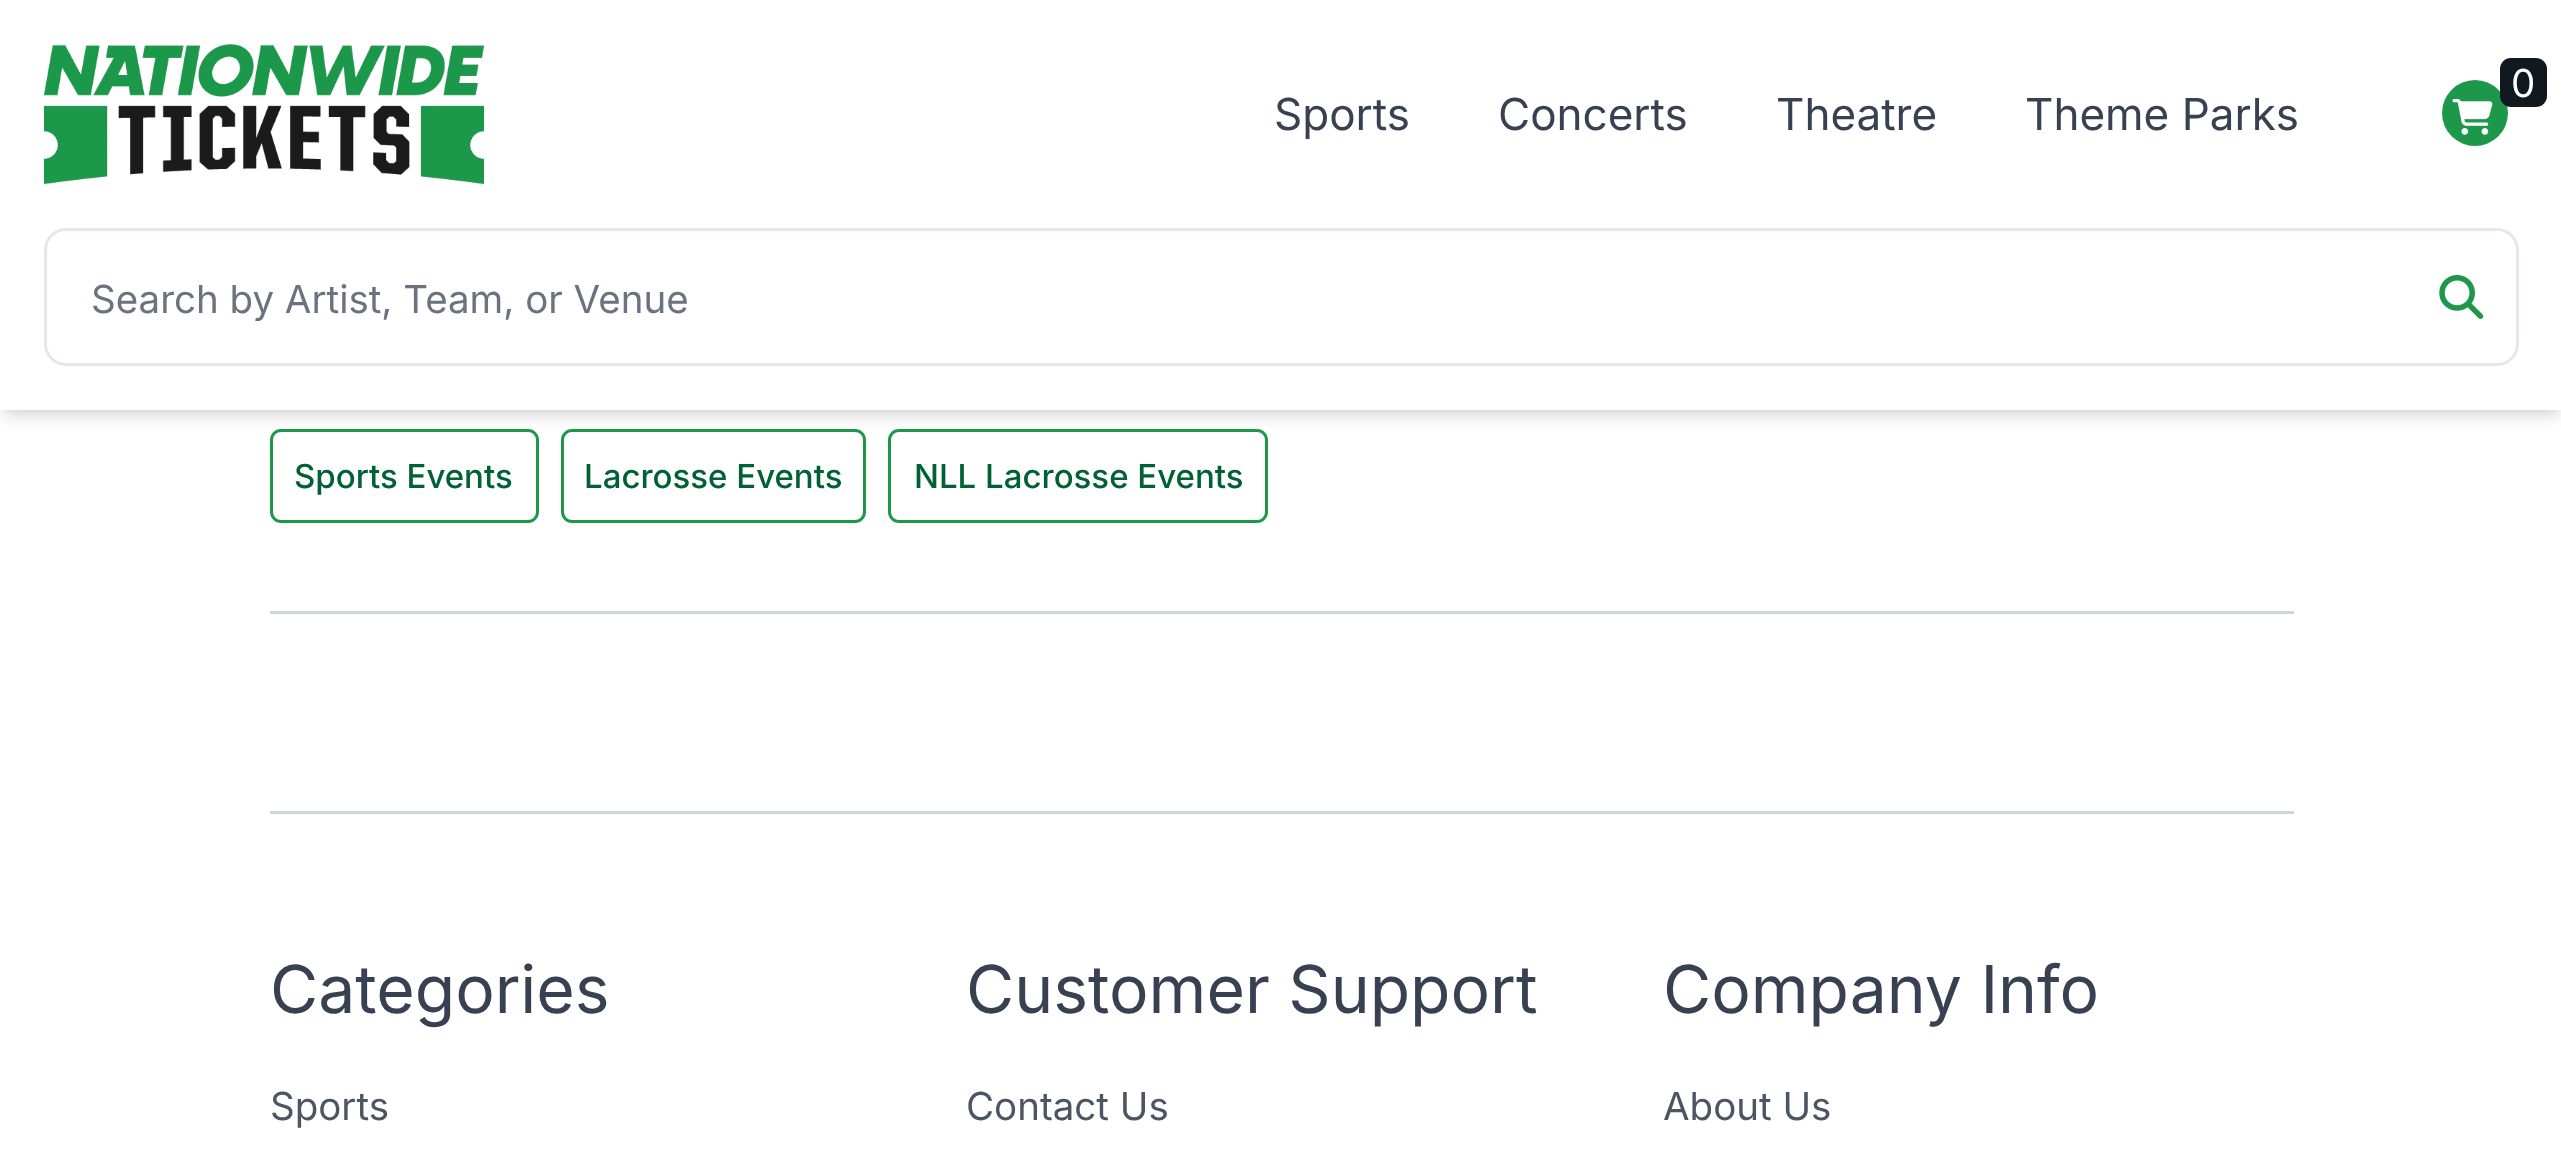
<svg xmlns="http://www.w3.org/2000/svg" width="2561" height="1165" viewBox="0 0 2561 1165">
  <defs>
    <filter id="blur1" x="-50%" y="-200%" width="200%" height="500%"><feGaussianBlur stdDeviation="5.5"/></filter>
    <filter id="blur2" x="-50%" y="-200%" width="200%" height="500%"><feGaussianBlur stdDeviation="8"/></filter>
  </defs>
  <rect width="100%" height="100%" fill="#ffffff"/>
  <rect x="6" y="11" width="2552" height="399" fill="#000000" fill-opacity="0.1" filter="url(#blur1)"/>
  <rect x="271.5" y="430.5" width="266" height="91" rx="9.5" fill="none" stroke="#1d984a" stroke-width="3"/>
  <rect x="562.5" y="430.5" width="302" height="91" rx="9.5" fill="none" stroke="#1d984a" stroke-width="3"/>
  <rect x="889.5" y="430.5" width="377" height="91" rx="9.5" fill="none" stroke="#1d984a" stroke-width="3"/>
  <rect x="3" y="14" width="2557" height="404" fill="#000000" fill-opacity="0.1" filter="url(#blur2)"/>
  <rect x="0" y="1" width="2561" height="409" fill="#ffffff"/>
  <image x="44" y="44" width="440" height="141" href="img1.png"/>
  <circle cx="2475" cy="113" r="33" fill="#1d984a"/>
  <image x="2452" y="99" width="41" height="36" href="img2.png"/>
  <rect x="2500" y="58" width="47" height="49" rx="11" fill="#101820"/>
  <text x="2511" y="97" font-family="Inter" font-size="38.5" fill="#ffffff">0</text>
  <text x="1274" y="130" font-family="Inter" font-size="44" fill="#374151">Sports</text>
  <text x="1498" y="130" font-family="Inter" font-size="44" fill="#374151">Concerts</text>
  <text x="1776" y="130" font-family="Inter" font-size="44" fill="#374151">Theatre</text>
  <text x="2025" y="130" font-family="Inter" font-size="44" fill="#374151">Theme Parks</text>
  <rect x="45.5" y="229.5" width="2472" height="135" rx="20.5" fill="none" stroke="#e2e8f0" stroke-width="3"/>
  <text x="91" y="313" font-family="Inter" font-size="38.5" fill="#6b7280">Search by Artist, Team, or Venue</text>
  <image x="2439" y="275" width="45" height="44" href="img3.png"/>
  <text x="294" y="488" font-family="Inter" font-size="33" font-weight="500" fill="#006134">Sports Events</text>
  <text x="584" y="488" font-family="Inter" font-size="33" font-weight="500" fill="#006134">Lacrosse Events</text>
  <text x="914" y="488" font-family="Inter" font-size="33" font-weight="500" fill="#006134">NLL Lacrosse Events</text>
  <rect x="270" y="611" width="2024" height="3" fill="#d1d5db"/>
  <rect x="270" y="811" width="2024" height="3" fill="#d1d5db"/>
  <text x="270" y="1013" font-family="Inter" font-size="66" fill="#374151">Categories</text>
  <text x="270" y="1120" font-family="Inter" font-size="38.5" fill="#4b5563">Sports</text>
  <text x="966" y="1013" font-family="Inter" font-size="66" fill="#374151">Customer Support</text>
  <text x="966" y="1120" font-family="Inter" font-size="38.5" fill="#4b5563">Contact Us</text>
  <text x="1663" y="1013" font-family="Inter" font-size="66" fill="#374151">Company Info</text>
  <text x="1663" y="1120" font-family="Inter" font-size="38.5" fill="#4b5563">About Us</text>
</svg>
